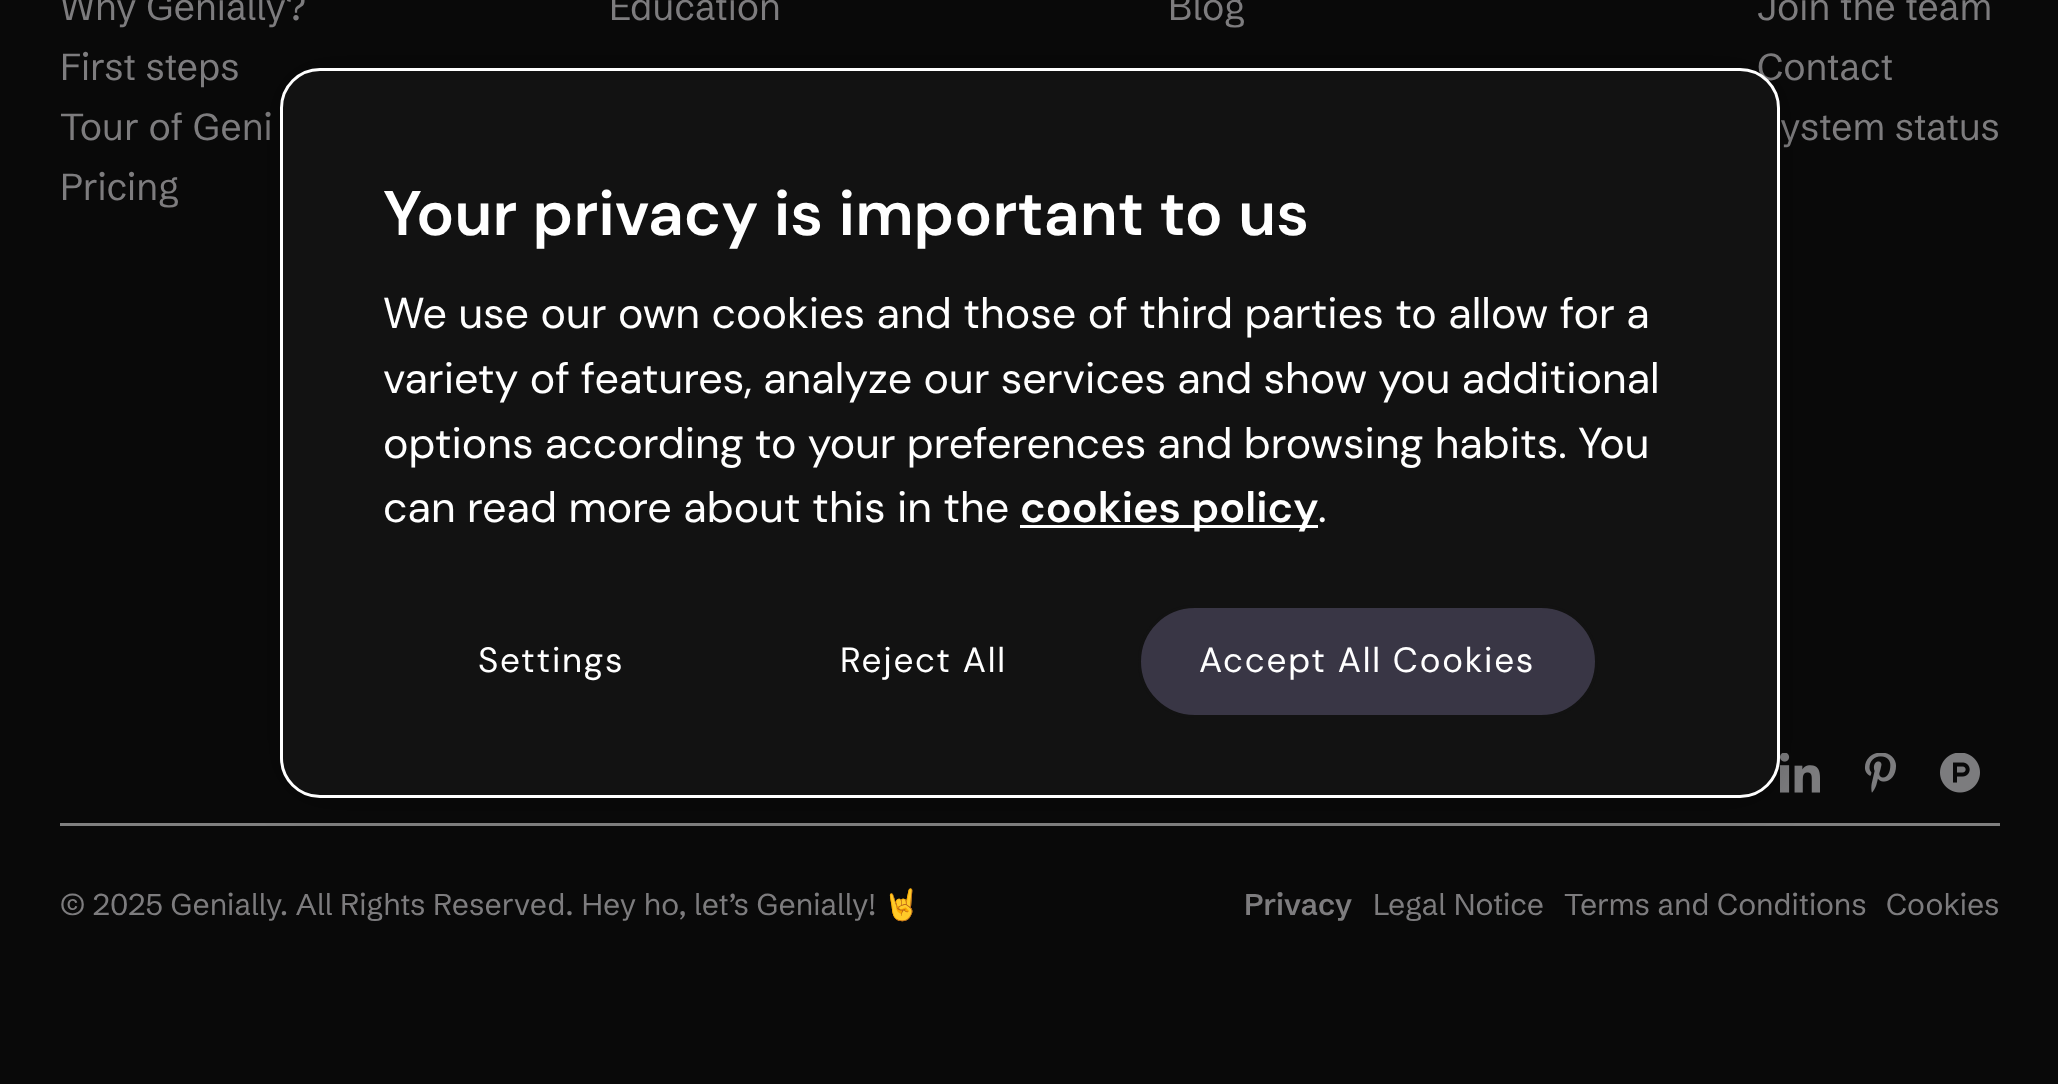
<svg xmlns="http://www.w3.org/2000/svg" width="2058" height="1084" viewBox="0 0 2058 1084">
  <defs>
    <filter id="blur1" x="-50%" y="-200%" width="200%" height="500%"><feGaussianBlur stdDeviation="22.5"/></filter>
  </defs>
  <rect width="100%" height="100%" fill="#090909"/>
  <text x="60" y="20" font-family="Schibsted Grotesk" font-size="37.5" fill="#7d7c7e">Why Genially?</text>
  <text x="60" y="80" font-family="Schibsted Grotesk" font-size="37.5" fill="#7d7c7e">First steps</text>
  <text x="60" y="140" font-family="Schibsted Grotesk" font-size="37.5" fill="#7d7c7e">Tour of Geni</text>
  <text x="60" y="200" font-family="Schibsted Grotesk" font-size="37.5" fill="#7d7c7e">Pricing</text>
  <text x="609" y="20" font-family="Schibsted Grotesk" font-size="37.5" fill="#7d7c7e">Education</text>
  <text x="1168" y="20" font-family="Schibsted Grotesk" font-size="37.5" fill="#7d7c7e">Blog</text>
  <text x="1757" y="20" font-family="Schibsted Grotesk" font-size="37.5" fill="#7d7c7e">Join the team</text>
  <text x="1757" y="80" font-family="Schibsted Grotesk" font-size="37.5" fill="#7d7c7e">Contact</text>
  <text x="1780" y="140" font-family="Schibsted Grotesk" font-size="37.5" fill="#7d7c7e">ystem status</text>
  <image x="1780" y="753" width="40" height="40" href="img1.png"/>
  <image x="1864" y="753" width="32" height="40" href="img2.png"/>
  <image x="1940" y="753" width="40" height="40" href="img3.png"/>
  <rect x="60" y="823" width="1940" height="3" fill="#808080"/>
  <text x="60" y="915" font-family="Schibsted Grotesk" font-size="30" fill="#7d7c7e">© 2025 Genially. All Rights Reserved. Hey ho, let’s Genially!</text>
  <text x="883" y="915" font-family="Noto Color Emoji" font-size="30" fill="#7d7c7e">🤘</text>
  <text x="1244" y="915" font-family="Schibsted Grotesk" font-size="30" font-weight="600" fill="#7d7c7e">Privacy</text>
  <text x="1373" y="915" font-family="Schibsted Grotesk" font-size="30" fill="#7d7c7e">Legal Notice</text>
  <text x="1564" y="915" font-family="Schibsted Grotesk" font-size="30" fill="#7d7c7e">Terms and Conditions</text>
  <text x="1886" y="915" font-family="Schibsted Grotesk" font-size="30" fill="#7d7c7e">Cookies</text>
  <rect x="280" y="68" width="1500" height="730" rx="40" fill="#000000" fill-opacity="0.2" filter="url(#blur1)"/>
  <rect x="281.5" y="69.5" width="1497" height="727" rx="38.5" fill="#121212" stroke="#ffffff" stroke-width="3"/>
  <text x="383" y="235" font-family="DM Sans" font-size="63" font-weight="600" fill="#ffffff">Your privacy is important to us</text>
  <text x="383" y="328" font-family="DM Sans" font-size="43.05" fill="#ffffff">We use our own cookies and those of third parties to allow for a</text>
  <text x="383" y="393" word-spacing="-0.25" font-family="DM Sans" font-size="43.05" fill="#ffffff">variety of features, analyze our services and show you additional</text>
  <text x="383" y="458" word-spacing="-0.25" font-family="DM Sans" font-size="43.05" fill="#ffffff">options according to your preferences and browsing habits. You</text>
  <text x="383" y="522" font-family="DM Sans" font-size="43.05" fill="#ffffff">can read more about this in the</text>
  <rect x="1020" y="525" width="298" height="3" fill="#ffffff"/>
  <text x="1020" y="522" font-family="DM Sans" font-size="43.05" font-weight="600" fill="#ffffff">cookies policy</text>
  <text x="1318" y="522" font-family="DM Sans" font-size="43.05" fill="#ffffff">.</text>
  <text x="478" y="672" font-family="DM Sans" font-size="35" letter-spacing="1.75" fill="#ffffff">Settings</text>
  <text x="840" y="672" font-family="DM Sans" font-size="35" letter-spacing="1.75" fill="#ffffff">Reject All</text>
  <rect x="1139.5" y="606.5" width="457" height="110" rx="55" fill="#393645" stroke="#121212" stroke-width="3"/>
  <text x="1199" y="672" font-family="DM Sans" font-size="35" letter-spacing="1.75" fill="#ffffff">Accept All Cookies</text>
</svg>
